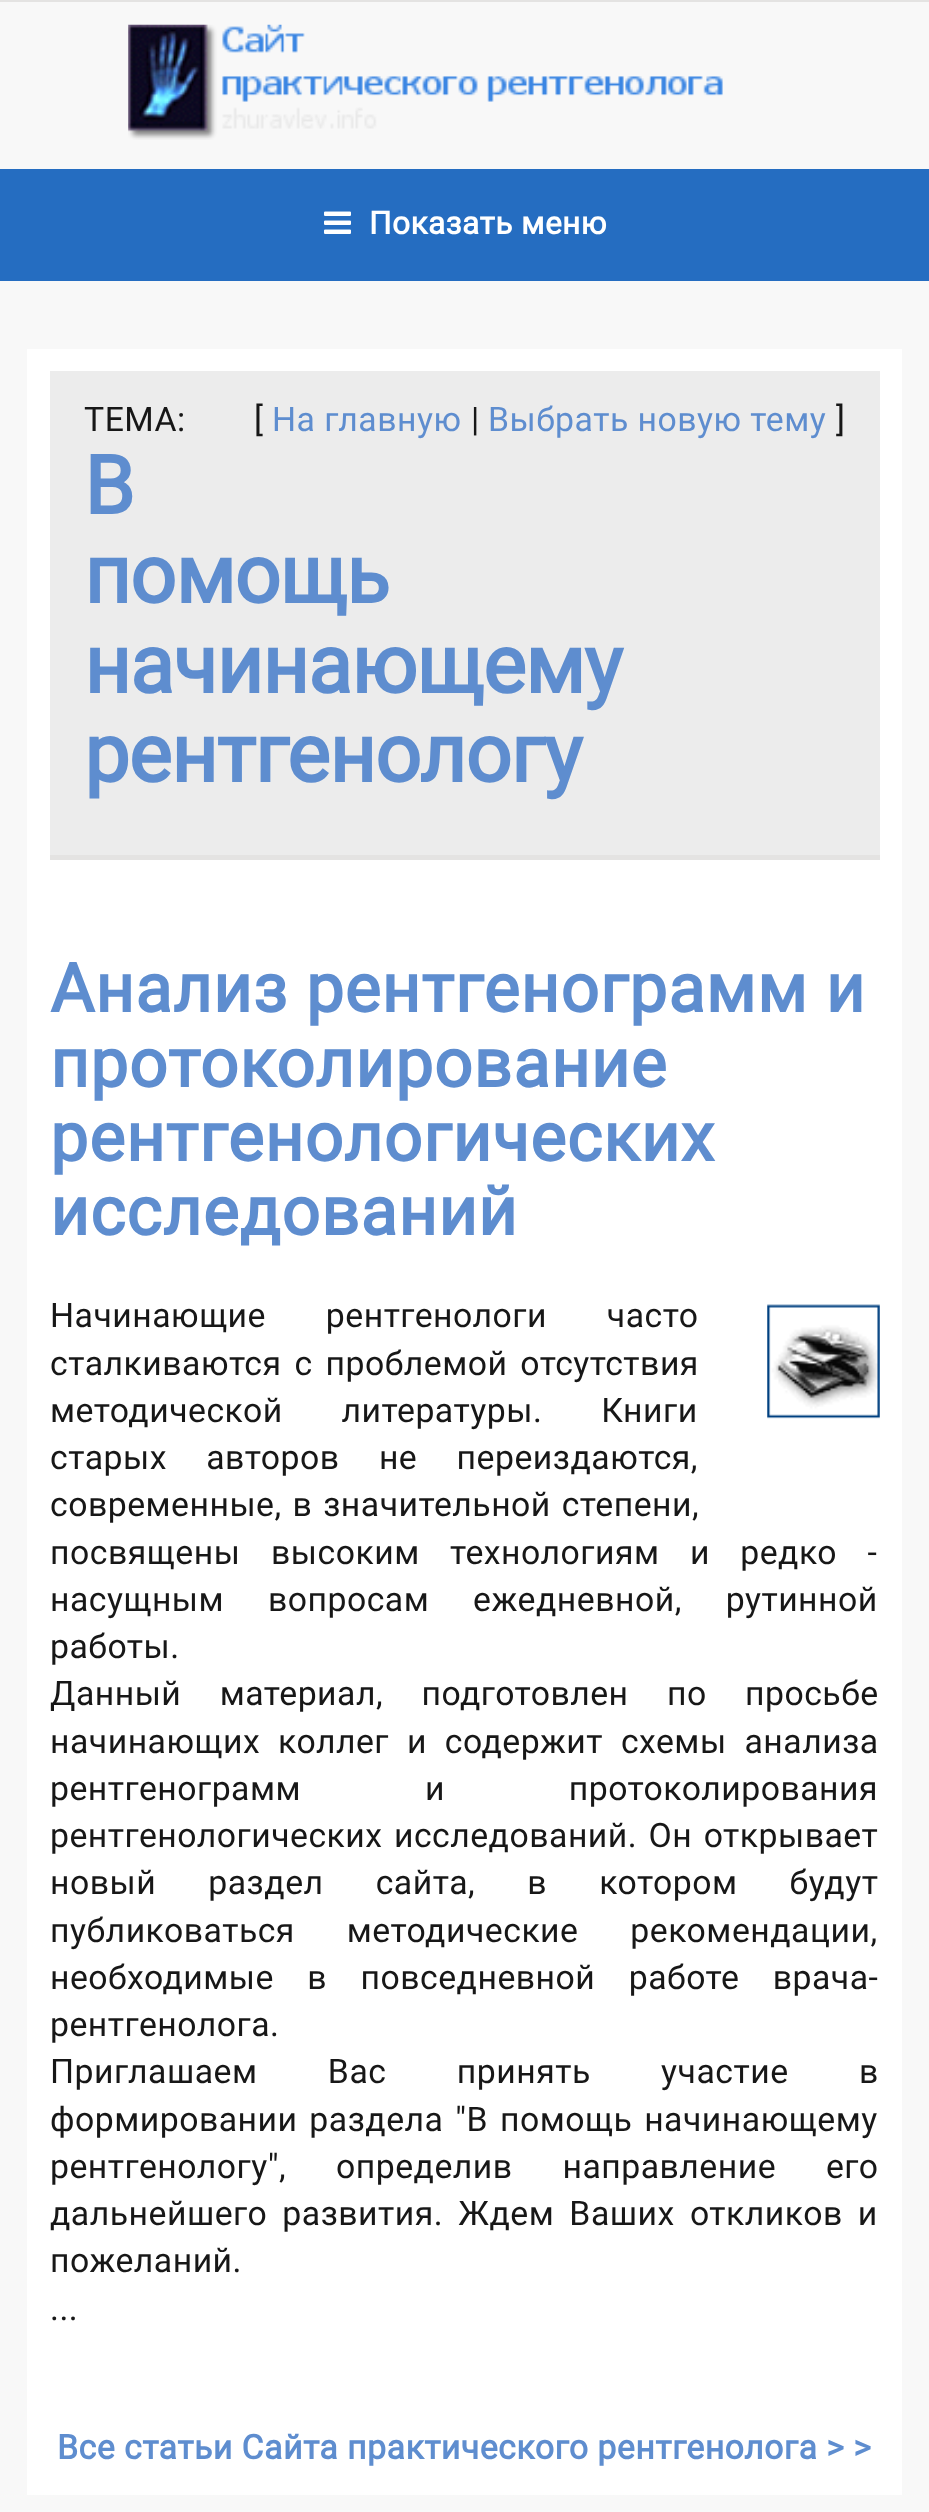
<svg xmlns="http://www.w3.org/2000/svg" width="929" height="2512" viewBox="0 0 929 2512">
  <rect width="100%" height="100%" fill="#f8f8f8"/>
  <rect x="0" y="0" width="929" height="2" fill="#e4e3e2"/>
  <image x="128" y="24" width="595" height="116" href="img1.png"/>
  <rect x="0" y="169" width="929" height="112" fill="#256dc1"/>
  <image x="324" y="211" width="27" height="23" href="img2.png"/>
  <text x="369" y="234" font-family="Roboto" font-size="31.5" font-weight="bold" letter-spacing="0.5" fill="#ffffff">Показать меню</text>
  <rect x="27" y="349" width="875" height="2146" fill="#ffffff"/>
  <rect x="50" y="371" width="830" height="484" fill="#ececec"/>
  <rect x="50" y="855" width="830" height="5" fill="#e4e3e2"/>
  <text x="84" y="431" font-family="Roboto" font-size="33.75" letter-spacing="0.5" fill="#171717">ТЕМА:</text>
  <text x="254" y="431" font-family="Roboto" font-size="33.75" letter-spacing="0.5" fill="#171717">[</text>
  <text x="272" y="431" font-family="Roboto" font-size="33.75" letter-spacing="0.5" fill="#5e8dcf">На главную</text>
  <text x="471" y="431" font-family="Roboto" font-size="33.75" letter-spacing="0.5" fill="#171717">|</text>
  <text x="488" y="431" font-family="Roboto" font-size="33.75" letter-spacing="0.5" fill="#5e8dcf">Выбрать новую тему</text>
  <text x="836" y="431" font-family="Roboto" font-size="33.75" letter-spacing="0.5" fill="#171717">]</text>
  <text x="84" y="514" font-family="Roboto" font-size="81" font-weight="bold" letter-spacing="-0.9" fill="#5e8dcf">В</text>
  <text x="84" y="603" font-family="Roboto" font-size="81" font-weight="bold" letter-spacing="-0.9" fill="#5e8dcf">помощь</text>
  <text x="84" y="693" font-family="Roboto" font-size="81" font-weight="bold" letter-spacing="-0.9" fill="#5e8dcf">начинающему</text>
  <text x="84" y="782" font-family="Roboto" font-size="81" font-weight="bold" letter-spacing="-0.9" fill="#5e8dcf">рентгенологу</text>
  <text x="50" y="1012" font-family="Roboto" font-size="67.5" font-weight="bold" letter-spacing="1" fill="#5e8dcf">Анализ рентгенограмм и</text>
  <text x="50" y="1087" font-family="Roboto" font-size="67.5" font-weight="bold" letter-spacing="1" fill="#5e8dcf">протоколирование</text>
  <text x="50" y="1161" font-family="Roboto" font-size="67.5" font-weight="bold" letter-spacing="1" fill="#5e8dcf">рентгенологических</text>
  <text x="50" y="1235" font-family="Roboto" font-size="67.5" font-weight="bold" letter-spacing="1" fill="#5e8dcf">исследований</text>
  <text x="50" y="1327" word-spacing="51" font-family="Roboto" font-size="33.75" letter-spacing="0.5" fill="#171717">Начинающие рентгенологи часто</text>
  <text x="50" y="1375" word-spacing="4" font-family="Roboto" font-size="33.75" letter-spacing="0.5" fill="#171717">сталкиваются с проблемой отсутствия</text>
  <text x="50" y="1422" word-spacing="50" font-family="Roboto" font-size="33.75" letter-spacing="0.5" fill="#171717">методической литературы. Книги</text>
  <text x="50" y="1469" word-spacing="30.5" font-family="Roboto" font-size="33.75" letter-spacing="0.5" fill="#171717">старых авторов не переиздаются,</text>
  <text x="50" y="1516" word-spacing="2" font-family="Roboto" font-size="33.75" letter-spacing="0.5" fill="#171717">современные, в значительной степени,</text>
  <text x="50" y="1564" font-family="Roboto" font-size="33.75" letter-spacing="0.5" fill="#171717">посвящены</text>
  <text x="271" y="1564" word-spacing="21.5" font-family="Roboto" font-size="33.75" letter-spacing="0.5" fill="#171717">высоким технологиям и редко -</text>
  <text x="50" y="1611" word-spacing="35" font-family="Roboto" font-size="33.75" letter-spacing="0.5" fill="#171717">насущным вопросам ежедневной, рутинной</text>
  <text x="50" y="1658" font-family="Roboto" font-size="33.75" letter-spacing="0.5" fill="#171717">работы.</text>
  <text x="50" y="1705" word-spacing="29.5" font-family="Roboto" font-size="33.75" letter-spacing="0.5" fill="#171717">Данный материал, подготовлен по просьбе</text>
  <text x="50" y="1753" word-spacing="9" font-family="Roboto" font-size="33.75" letter-spacing="0.5" fill="#171717">начинающих коллег и содержит схемы анализа</text>
  <text x="50" y="1800" word-spacing="115" font-family="Roboto" font-size="33.75" letter-spacing="0.5" fill="#171717">рентгенограмм и протоколирования</text>
  <text x="50" y="1847" word-spacing="2.5" font-family="Roboto" font-size="33.75" letter-spacing="0.5" fill="#171717">рентгенологических исследований. Он открывает</text>
  <text x="50" y="1894" word-spacing="43.25" font-family="Roboto" font-size="33.75" letter-spacing="0.5" fill="#171717">новый раздел сайта, в котором будут</text>
  <text x="50" y="1942" word-spacing="43" font-family="Roboto" font-size="33.75" letter-spacing="0.5" fill="#171717">публиковаться методические рекомендации,</text>
  <text x="50" y="1989" word-spacing="24.5" font-family="Roboto" font-size="33.75" letter-spacing="0.5" fill="#171717">необходимые в повседневной работе врача-</text>
  <text x="50" y="2036" font-family="Roboto" font-size="33.75" letter-spacing="0.5" fill="#171717">рентгенолога.</text>
  <text x="50" y="2083" word-spacing="61.5" font-family="Roboto" font-size="33.75" letter-spacing="0.5" fill="#171717">Приглашаем Вас принять участие в</text>
  <text x="50" y="2131" word-spacing="3" font-family="Roboto" font-size="33.75" letter-spacing="0.5" fill="#171717">формировании раздела "В помощь начинающему</text>
  <text x="50" y="2178" word-spacing="41" font-family="Roboto" font-size="33.75" letter-spacing="0.5" fill="#171717">рентгенологу", определив направление его</text>
  <text x="50" y="2225" word-spacing="6.25" font-family="Roboto" font-size="33.75" letter-spacing="0.5" fill="#171717">дальнейшего развития. Ждем Ваших откликов и</text>
  <text x="50" y="2272" font-family="Roboto" font-size="33.75" letter-spacing="0.5" fill="#171717">пожеланий.</text>
  <image x="767" y="1304" width="113" height="115" href="img3.png"/>
  <text x="50" y="2320" font-family="Roboto" font-size="33.75" letter-spacing="0.5" fill="#171717">...</text>
  <text x="57" y="2459" font-family="Roboto" font-size="33.75" font-weight="bold" letter-spacing="0.5" fill="#5e8dcf">Все статьи Сайта практического рентгенолога &gt; &gt;</text>
</svg>
